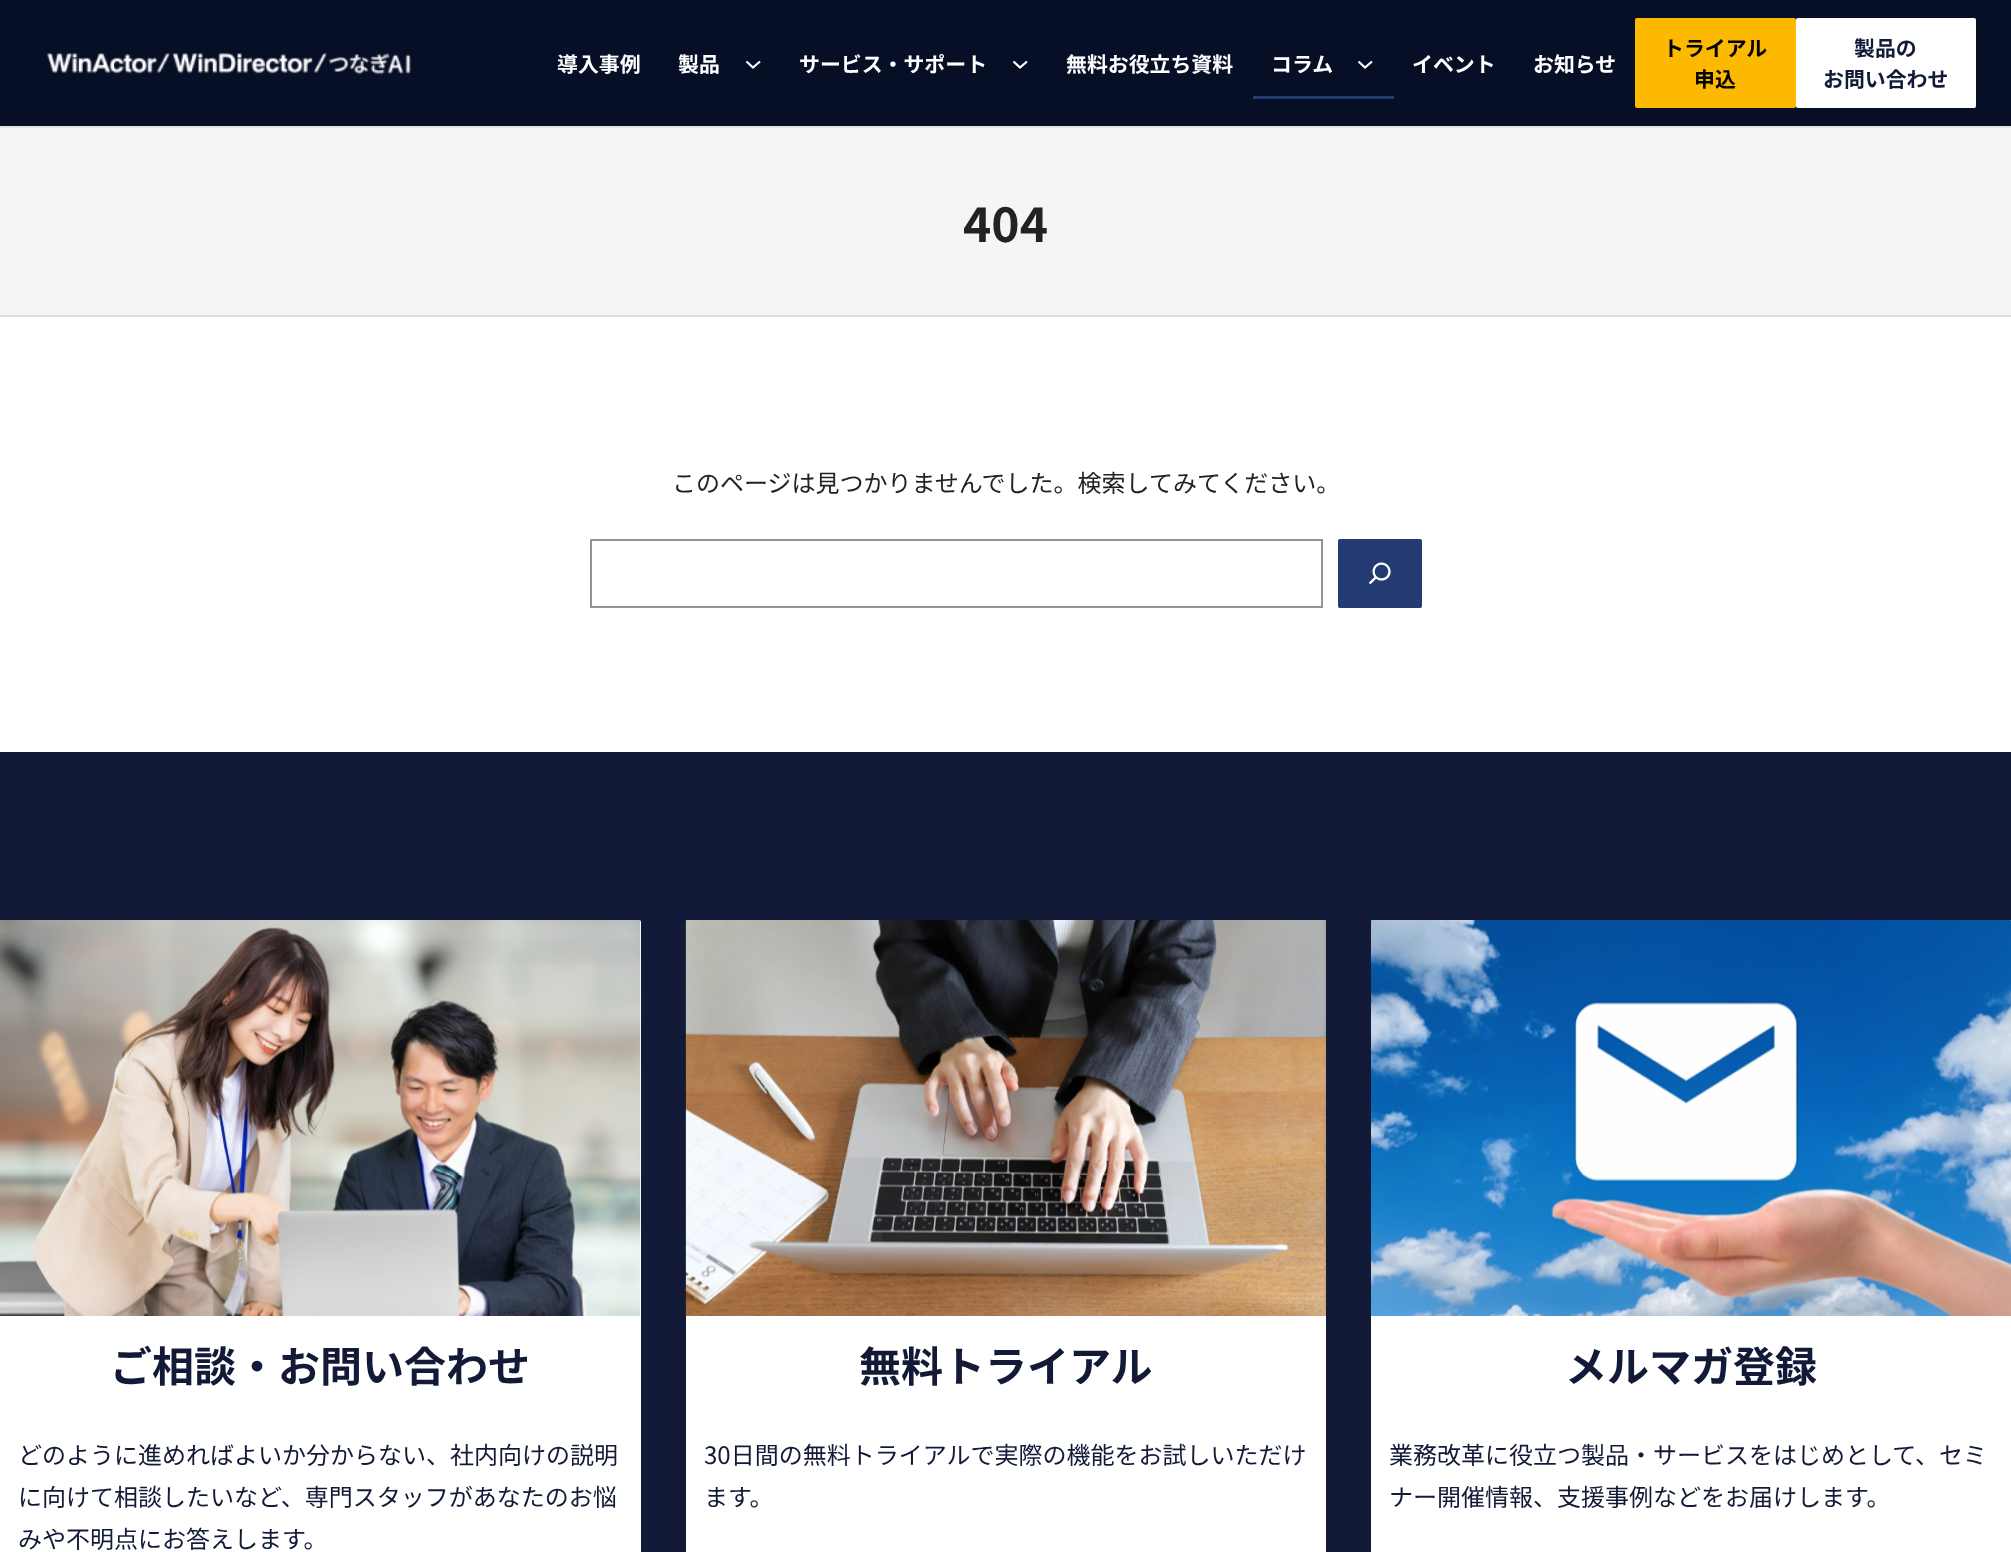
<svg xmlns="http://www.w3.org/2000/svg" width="2011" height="1552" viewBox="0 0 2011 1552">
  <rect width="100%" height="100%" fill="#ffffff"/>
  <rect x="0" y="0" width="2011" height="126" fill="#070f26"/>
  <image x="46" y="53" width="365" height="22" href="img1.png"/>
  <text x="557" y="72" font-family="Noto Sans JP" font-size="20.9" font-weight="bold" fill="#ffffff">導入事例</text>
  <text x="678" y="72" font-family="Noto Sans JP" font-size="20.9" font-weight="bold" fill="#ffffff">製品</text>
  <path d="M746.5 61.5L753 67.5L760 61.5" fill="none" stroke="#ffffff" stroke-width="2.2"/>
  <text x="799" y="72" font-family="Noto Sans JP" font-size="20.9" font-weight="bold" fill="#ffffff">サービス・サポート</text>
  <path d="M1013.5 61.5L1020 67.5L1027 61.5" fill="none" stroke="#ffffff" stroke-width="2.2"/>
  <text x="1066" y="72" font-family="Noto Sans JP" font-size="20.9" font-weight="bold" fill="#ffffff">無料お役立ち資料</text>
  <text x="1271" y="72" font-family="Noto Sans JP" font-size="20.9" font-weight="bold" fill="#ffffff">コラム</text>
  <rect x="1253" y="96" width="141" height="3" fill="#233a73"/>
  <path d="M1358.5 61.5L1365 67.5L1372 61.5" fill="none" stroke="#ffffff" stroke-width="2.2"/>
  <text x="1412" y="72" font-family="Noto Sans JP" font-size="20.9" font-weight="bold" fill="#ffffff">イベント</text>
  <text x="1533" y="72" font-family="Noto Sans JP" font-size="20.9" font-weight="bold" fill="#ffffff">お知らせ</text>
  <rect x="1635" y="18" width="161" height="90" rx="2" fill="#fcb900"/>
  <text x="1663" y="56" font-family="Noto Sans JP" font-size="20.9" font-weight="bold" fill="#000000">トライアル</text>
  <text x="1694" y="87" font-family="Noto Sans JP" font-size="20.9" font-weight="bold" fill="#000000">申込</text>
  <rect x="1796" y="18" width="180" height="90" rx="2" fill="#ffffff"/>
  <text x="1854" y="56" font-family="Noto Sans JP" font-size="20.9" font-weight="bold" fill="#121a38">製品の</text>
  <text x="1823" y="87" font-family="Noto Sans JP" font-size="20.9" font-weight="bold" fill="#121a38">お問い合わせ</text>
  <rect x="0" y="126" width="2011" height="2" fill="#e6e6e6"/>
  <rect x="0" y="128" width="2011" height="187" fill="#f5f5f5"/>
  <rect x="0" y="315" width="2011" height="2" fill="#dddddd"/>
  <text x="963" y="242" font-family="Noto Sans JP" font-size="48" font-weight="bold" fill="#222222">404</text>
  <text x="672" y="492" font-family="Noto Sans JP" font-size="24" fill="#222222">このページは見つかりませんでした。検索してみてください。</text>
  <rect x="591" y="540" width="731" height="67" fill="none" stroke="#949494" stroke-width="2"/>
  <rect x="1338" y="539" width="84" height="69" rx="2" fill="#233a73"/>
  <image x="1368" y="562" width="23" height="23" href="img2.png"/>
  <rect x="0" y="752" width="2011" height="800" fill="#121a38"/>
  <rect x="0" y="920" width="641" height="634" rx="2" fill="#ffffff"/>
  <image x="0" y="920" width="641" height="396" href="img3.png"/>
  <text x="110" y="1382" font-family="Noto Sans JP" font-size="42" font-weight="bold" fill="#121a38">ご相談・お問い合わせ</text>
  <text x="18" y="1464" font-family="Noto Sans JP" font-size="24" fill="#121a38">どのように進めればよいか分からない、社内向けの説明</text>
  <text x="18" y="1506" font-family="Noto Sans JP" font-size="24" fill="#121a38">に向けて相談したいなど、専門スタッフがあなたのお悩</text>
  <text x="18" y="1548" font-family="Noto Sans JP" font-size="24" fill="#121a38">みや不明点にお答えします。</text>
  <rect x="686" y="920" width="640" height="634" rx="2" fill="#ffffff"/>
  <image x="685" y="920" width="641" height="396" href="img4.png"/>
  <text x="859" y="1382" font-family="Noto Sans JP" font-size="42" font-weight="bold" fill="#121a38">無料トライアル</text>
  <text x="704" y="1464" font-family="Noto Sans JP" font-size="24" fill="#121a38">30日間の無料トライアルで実際の機能をお試しいただけ</text>
  <text x="704" y="1506" font-family="Noto Sans JP" font-size="24" fill="#121a38">ます。</text>
  <rect x="1371" y="920" width="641" height="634" rx="2" fill="#ffffff"/>
  <image x="1371" y="920" width="640" height="396" href="img5.png"/>
  <text x="1565" y="1382" font-family="Noto Sans JP" font-size="42" font-weight="bold" fill="#121a38">メルマガ登録</text>
  <text x="1389" y="1464" font-family="Noto Sans JP" font-size="24" fill="#121a38">業務改革に役立つ製品・サービスをはじめとして、セミ</text>
  <text x="1389" y="1506" font-family="Noto Sans JP" font-size="24" fill="#121a38">ナー開催情報、支援事例などをお届けします。</text>
</svg>
